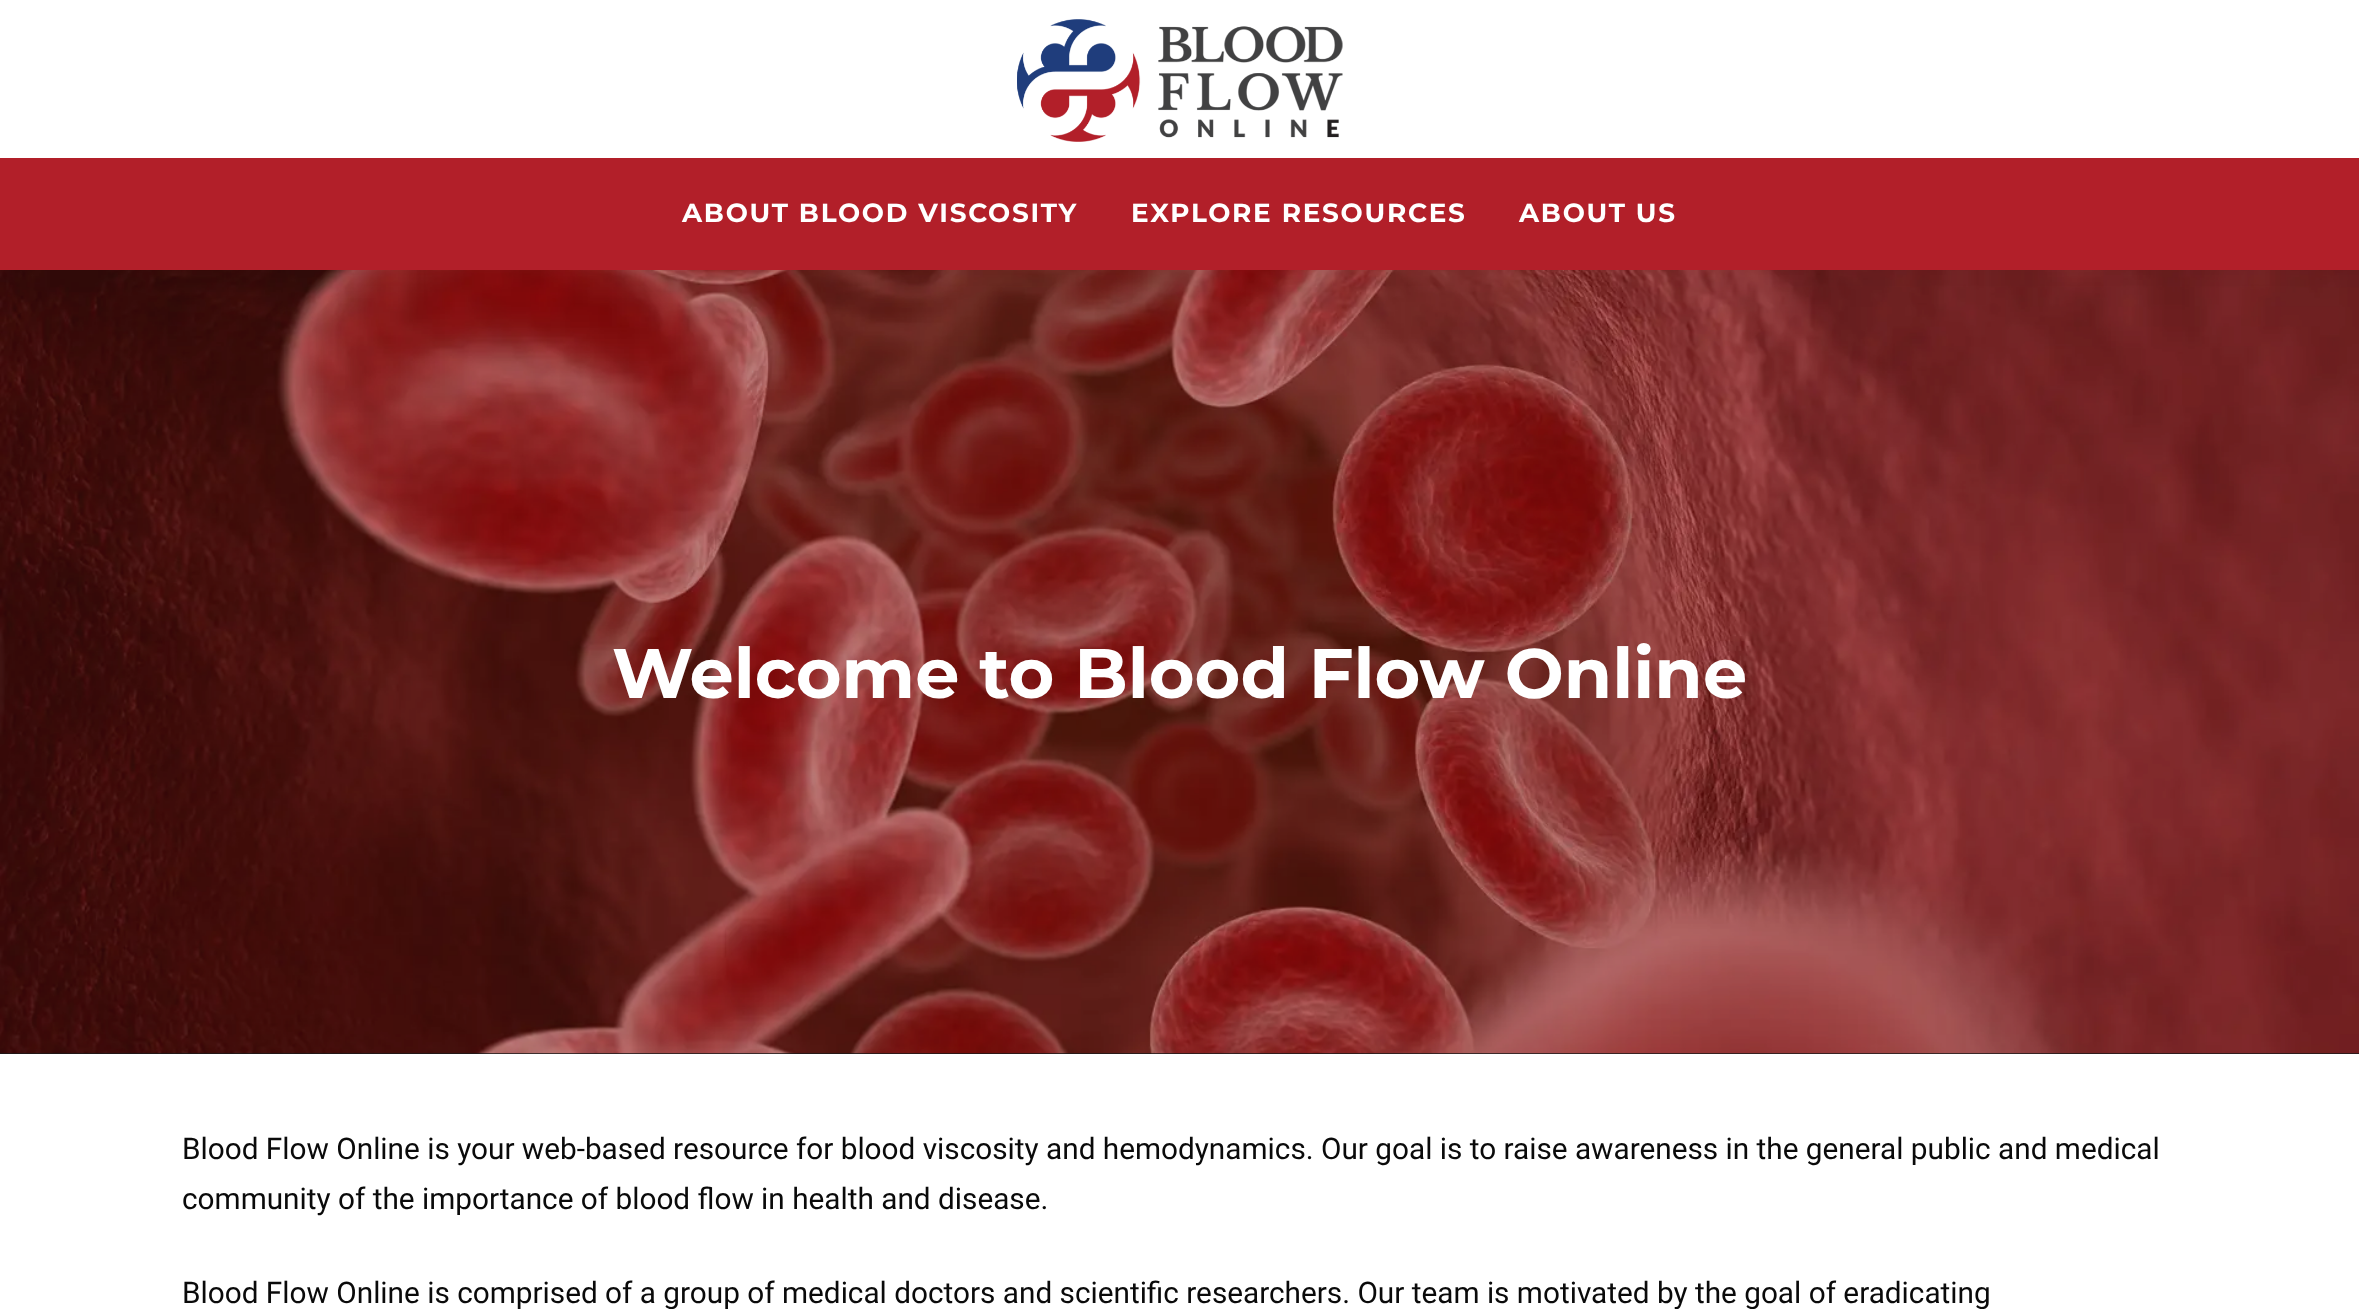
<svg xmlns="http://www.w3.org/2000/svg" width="2359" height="1309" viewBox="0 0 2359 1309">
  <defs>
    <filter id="blur1" x="-50%" y="-200%" width="200%" height="500%"><feGaussianBlur stdDeviation="26"/></filter>
  </defs>
  <rect width="100%" height="100%" fill="#ffffff"/>
  <rect x="0" y="1053" width="2359" height="1" fill="#191a1a"/>
  <image x="0" y="270" width="2359" height="784" href="img2.png"/>
  <rect x="0" y="0" width="2359" height="270" fill="#000000" fill-opacity="0.05" filter="url(#blur1)"/>
  <rect x="0" y="0" width="2359" height="158" fill="#ffffff"/>
  <image x="1017" y="19" width="326" height="123" href="img1.png"/>
  <rect x="0" y="158" width="2359" height="112" fill="#b21f29"/>
  <text x="682" y="222" font-family="Montserrat" font-size="26.25" font-weight="bold" letter-spacing="1.75" fill="#ffffff">ABOUT BLOOD VISCOSITY</text>
  <text x="1131" y="222" font-family="Montserrat" font-size="26.25" font-weight="bold" letter-spacing="1.75" fill="#ffffff">EXPLORE RESOURCES</text>
  <text x="1519" y="222" font-family="Montserrat" font-size="26.25" font-weight="bold" letter-spacing="1.75" fill="#ffffff">ABOUT US</text>
  <text x="612" y="698" font-family="Montserrat" font-size="70" font-weight="bold" fill="#ffffff">Welcome to Blood Flow Online</text>
  <text x="182" y="1159" font-family="Roboto" font-size="29.75" fill="#0a0a0a">Blood Flow Online is your web-based resource for blood viscosity and hemodynamics. Our goal is to raise awareness in the general public and medical</text>
  <text x="182" y="1209" font-family="Roboto" font-size="29.75" fill="#0a0a0a">community of the importance of blood flow in health and disease.</text>
  <text x="182" y="1303" font-family="Roboto" font-size="29.75" fill="#0a0a0a">Blood Flow Online is comprised of a group of medical doctors and scientific researchers. Our team is motivated by the goal of eradicating</text>
</svg>
